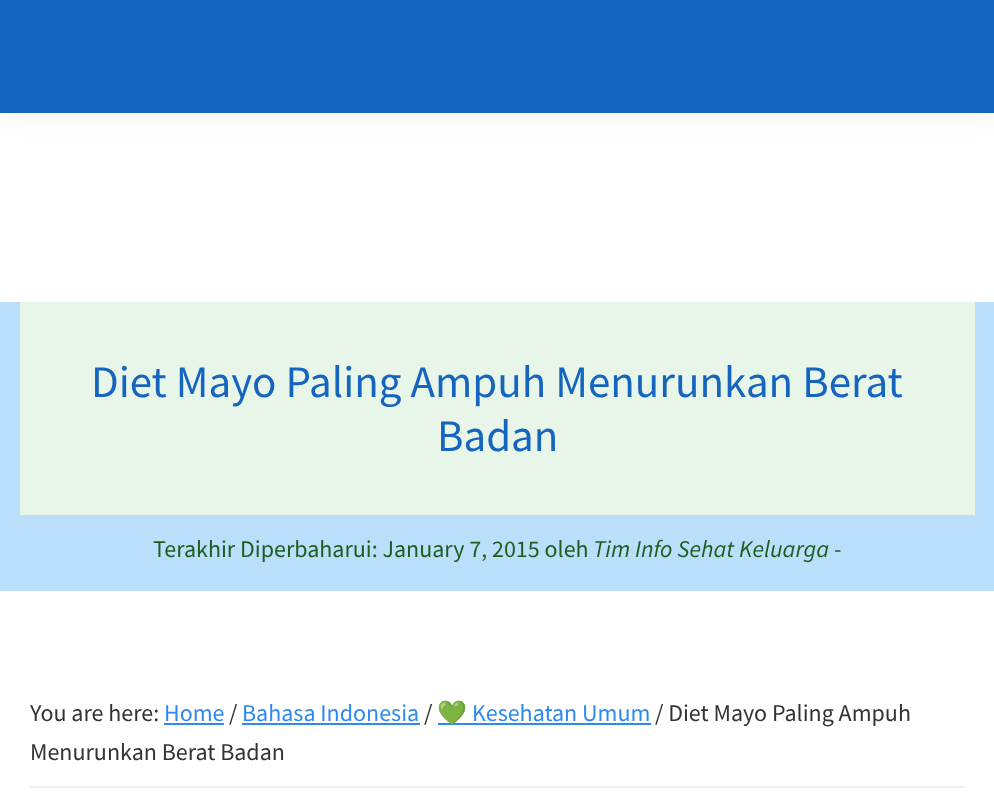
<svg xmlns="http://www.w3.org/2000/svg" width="994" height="812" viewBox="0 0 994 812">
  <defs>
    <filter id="blur1" x="-50%" y="-200%" width="200%" height="500%"><feGaussianBlur stdDeviation="15"/></filter>
  </defs>
  <rect width="100%" height="100%" fill="#ffffff"/>
  <rect x="0" y="0" width="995" height="113" fill="#000000" fill-opacity="0.05" filter="url(#blur1)"/>
  <rect x="0" y="0" width="994" height="113" fill="#1565c0"/>
  <rect x="0" y="302" width="994" height="289" fill="#bbdefb"/>
  <rect x="20" y="302" width="955" height="213" fill="#e8f5e9"/>
  <text x="91" y="397" font-family="Source Sans Pro" font-size="45" fill="#1565c0">Diet Mayo Paling Ampuh Menurunkan Berat</text>
  <text x="437" y="451" font-family="Source Sans Pro" font-size="45" fill="#1565c0">Badan</text>
  <text x="153" y="557" font-family="Source Sans Pro" font-size="24" fill="#1b5e20">Terakhir Diperbaharui: January 7, 2015 oleh</text>
  <text x="593" y="557" font-family="Source Sans Pro" font-size="24" font-style="italic" fill="#1b5e20">Tim Info Sehat Keluarga</text>
  <text x="834" y="557" font-family="Source Sans Pro" font-size="24" fill="#1b5e20">-</text>
  <rect x="30" y="786" width="935" height="2" fill="#eeeeee"/>
  <text x="30" y="721" font-family="Source Sans Pro" font-size="24" fill="#333333">You are here:</text>
  <text x="164" y="721" font-family="Source Sans Pro" font-size="24" fill="#2d89ef">Home</text>
  <rect x="164" y="723" width="60" height="2" fill="#2d89ef"/>
  <text x="229" y="721" font-family="Source Sans Pro" font-size="24" fill="#333333">/</text>
  <text x="242" y="721" font-family="Source Sans Pro" font-size="24" fill="#2d89ef">Bahasa Indonesia</text>
  <rect x="242" y="723" width="178" height="2" fill="#2d89ef"/>
  <text x="424" y="721" font-family="Source Sans Pro" font-size="24" fill="#333333">/</text>
  <rect x="438" y="723" width="213" height="2" fill="#2d89ef"/>
  <text x="437" y="721" font-family="Noto Color Emoji" font-size="24" fill="#2d89ef">💚</text>
  <text x="472" y="721" font-family="Source Sans Pro" font-size="24" fill="#2d89ef">Kesehatan Umum</text>
  <text x="655" y="721" font-family="Source Sans Pro" font-size="24" fill="#333333">/ Diet Mayo Paling Ampuh</text>
  <text x="30" y="760" font-family="Source Sans Pro" font-size="24" fill="#333333">Menurunkan Berat Badan</text>
</svg>
